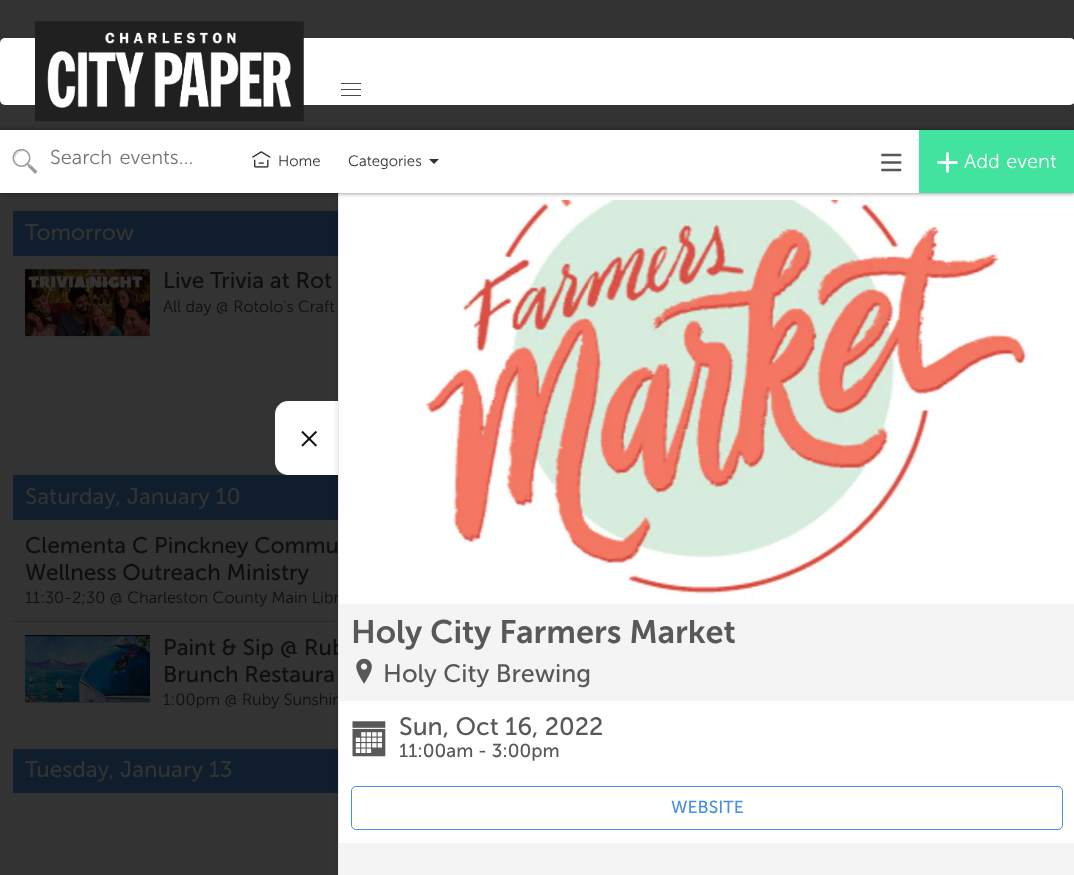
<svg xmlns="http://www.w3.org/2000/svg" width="1074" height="875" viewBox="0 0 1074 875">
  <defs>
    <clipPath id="clip1"><rect x="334" y="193" width="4" height="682"/></clipPath>
    <filter id="blur1" x="-50%" y="-200%" width="200%" height="500%"><feGaussianBlur stdDeviation="2.5"/></filter>
    <clipPath id="clip2"><rect x="1013" y="365" width="56" height="56"/></clipPath>
  </defs>
  <rect width="100%" height="100%" fill="#333333"/>
  <rect x="0" y="38" width="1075" height="67" rx="5" fill="#ffffff"/>
  <rect x="13" y="621" width="512" height="1" fill="#292929"/>
  <text x="25" y="603" font-family="Museo Sans" font-size="16.25" font-weight="300" fill="#0e0e0e">11:30-2;30 @ Charleston County Main Libr</text>
  <text x="163" y="655" font-family="Museo Sans" font-size="22.5" fill="#0e0e0e">Paint &amp; Sip @ Rub</text>
  <text x="163" y="705" font-family="Museo Sans" font-size="16.25" font-weight="300" fill="#0e0e0e">1:00pm @ Ruby Sunshin</text>
  <rect x="13" y="211" width="325" height="45" fill="#0f1d2d"/>
  <rect x="13" y="475" width="325" height="45" fill="#0f1d2d"/>
  <rect x="13" y="749" width="325" height="44" fill="#0f1d2d"/>
  <path d="M288 401H338V475H288C281 475 275 469 275 462V414C275 407 281 401 288 401Z" fill="#ffffff"/>
  <g clip-path="url(#clip1)">
    <rect x="335" y="154" width="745" height="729" fill="#000000" fill-opacity="0.06" filter="url(#blur1)"/>
  </g>
  <rect x="338" y="193" width="1" height="682" fill="#e8e9ea"/>
  <rect x="339" y="193" width="735" height="7" fill="#ffffff"/>
  <rect x="339" y="603" width="735" height="272" fill="#ffffff" fill-opacity="0.95"/>
  <image x="339" y="200" width="735" height="404" href="img9.png"/>
  <rect x="0" y="130" width="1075" height="63" fill="#000000" fill-opacity="0.5" filter="url(#blur1)"/>
  <image x="35" y="21" width="269" height="101" href="img1.png"/>
  <rect x="341" y="83" width="20" height="1" fill="#4a4a4a"/>
  <rect x="341" y="89" width="20" height="1" fill="#4a4a4a"/>
  <rect x="341" y="95" width="20" height="1" fill="#4a4a4a"/>
  <rect x="0" y="130" width="919" height="63" fill="#ffffff"/>
  <image x="12" y="149" width="26" height="25" href="img2.png"/>
  <text x="50" y="164" word-spacing="2" font-family="Museo Sans" font-size="20" font-weight="300" fill="#757575">Search events...</text>
  <image x="252" y="151" width="19" height="17" href="img3.png"/>
  <text x="278" y="166" font-family="Museo Sans" font-size="15" font-weight="300" fill="#333333">Home</text>
  <text x="348" y="166" font-family="Museo Sans" font-size="15" font-weight="300" fill="#333333">Categories</text>
  <path d="M429 159H439L434 164Z" fill="#333333"/>
  <image x="881" y="153" width="21" height="19" href="img4.png"/>
  <rect x="919" y="130" width="155" height="63" fill="#42e39e"/>
  <image x="937" y="152" width="21" height="21" href="img5.png"/>
  <text x="964" y="168" word-spacing="1" font-family="Museo Sans" font-size="20" font-weight="300" fill="#ffffff">Add event</text>
  <text x="25" y="240" font-family="Museo Sans" font-size="22.5" fill="#333333">Tomorrow</text>
  <image x="25" y="268" width="125" height="69" href="img6.png"/>
  <text x="163" y="288" font-family="Museo Sans" font-size="22.5" fill="#0e0e0e">Live Trivia at Rot</text>
  <text x="163" y="312" font-family="Museo Sans" font-size="16.25" font-weight="300" fill="#0e0e0e">All day @ Rotolo's Craft</text>
  <text x="25" y="504" font-family="Museo Sans" font-size="22.5" fill="#333333">Saturday, January 10</text>
  <text x="25" y="553" font-family="Museo Sans" font-size="22.5" fill="#0e0e0e">Clementa C Pinckney Commu</text>
  <text x="25" y="580" font-family="Museo Sans" font-size="22.5" fill="#0e0e0e">Wellness Outreach Ministry</text>
  <image x="25" y="635" width="125" height="68" href="img7.png"/>
  <text x="163" y="682" font-family="Museo Sans" font-size="22.5" fill="#0e0e0e">Brunch Restaura</text>
  <text x="25" y="777" font-family="Museo Sans" font-size="22.5" fill="#333333">Tuesday, January 13</text>
  <image x="301" y="430" width="16" height="17" href="img8.png"/>
  <g clip-path="url(#clip2)">
    <path d="M1018 364L1046 392L1018 421H1028L1056 392L1028 364Z" fill="#ffffff"/>
  </g>
  <text x="351" y="643" font-family="Museo Sans" font-size="32.5" font-weight="600" fill="#575858">Holy City Farmers Market</text>
  <image x="356" y="658" width="16" height="26" href="img10.png"/>
  <text x="383" y="682" font-family="Museo Sans" font-size="25" fill="#575858">Holy City Brewing</text>
  <rect x="339" y="701" width="735" height="142" fill="#ffffff"/>
  <image x="352" y="721" width="34" height="36" href="img11.png"/>
  <text x="399" y="735" font-family="Museo Sans" font-size="25" fill="#575858">Sun, Oct 16, 2022</text>
  <text x="399" y="757" font-family="Museo Sans" font-size="18.75" fill="#575858">11:00am - 3:00pm</text>
  <rect x="351.5" y="786.5" width="711" height="43" rx="4.5" fill="none" stroke="#4a90e2"/>
  <text x="671" y="813" font-family="Museo Sans" font-size="17.5" fill="#4a90e2">WEBSITE</text>
</svg>
